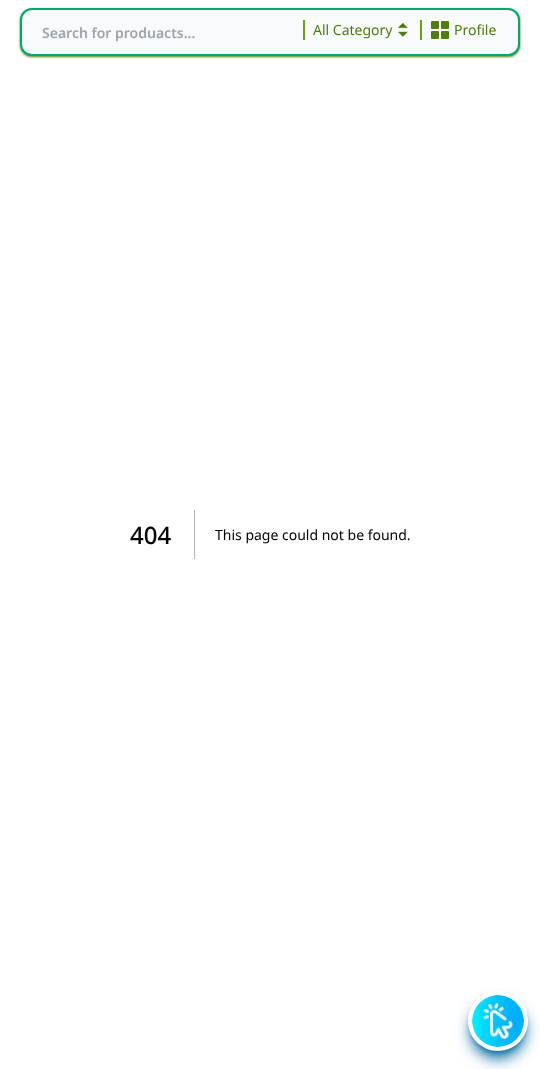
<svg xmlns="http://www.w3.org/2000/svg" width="540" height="1069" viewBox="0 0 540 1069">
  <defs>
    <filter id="blur1" x="-50%" y="-200%" width="200%" height="500%"><feGaussianBlur stdDeviation="1"/></filter>
    <clipPath id="clip1"><path d="M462 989H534V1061H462ZM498 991C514.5 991 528 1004.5 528 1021C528 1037.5 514.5 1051 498 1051C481.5 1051 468 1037.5 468 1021C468 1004.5 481.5 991 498 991Z" clip-rule="evenodd"/></clipPath>
    <filter id="blur2" x="-50%" y="-200%" width="200%" height="500%"><feGaussianBlur stdDeviation="3"/></filter>
    <clipPath id="clip2"><path d="M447 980H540V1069H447ZM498 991C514.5 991 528 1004.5 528 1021C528 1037.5 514.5 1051 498 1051C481.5 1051 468 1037.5 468 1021C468 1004.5 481.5 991 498 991Z" clip-rule="evenodd"/></clipPath>
    <filter id="blur3" x="-50%" y="-200%" width="200%" height="500%"><feGaussianBlur stdDeviation="7.5"/></filter>
  </defs>
  <rect width="100%" height="100%" fill="#ffffff"/>
  <rect x="20" y="9" width="500" height="48" rx="12" fill="#4d7c0f" filter="url(#blur1)"/>
  <rect x="21" y="9" width="498" height="46" rx="11" fill="#f9fafb" stroke="#00a96e" stroke-width="2"/>
  <text x="42" y="38" font-family="Noto Sans" font-size="14" font-weight="600" fill="#9ca3af">Search for produacts...</text>
  <rect x="303" y="20" width="2" height="20" fill="#65a30d"/>
  <text x="313" y="35" font-family="Noto Sans" font-size="14" fill="#4d7c0f">All Category</text>
  <image x="398" y="23" width="10" height="14" href="img1.png"/>
  <rect x="420" y="20" width="2" height="20" fill="#65a30d"/>
  <rect x="431" y="21" width="8" height="8" rx="1" fill="#4d7c0f"/>
  <rect x="441" y="21" width="8" height="8" rx="1" fill="#4d7c0f"/>
  <rect x="441" y="31" width="8" height="8" rx="1" fill="#4d7c0f"/>
  <rect x="431" y="31" width="8" height="8" rx="1" fill="#4d7c0f"/>
  <text x="454" y="35" font-family="Noto Sans" font-size="14" fill="#4d7c0f">Profile</text>
  <rect x="194" y="510" width="1" height="49" fill="#b3b3b3"/>
  <text x="130" y="544" font-family="Noto Sans" font-size="24" font-weight="500" fill="#000000">404</text>
  <text x="215" y="540" font-family="Noto Sans" font-size="14" fill="#000000">This page could not be found.</text>
  <g clip-path="url(#clip1)">
    <rect x="472" y="999" width="52" height="52" rx="26" fill="#0369a1" filter="url(#blur2)"/>
  </g>
  <g clip-path="url(#clip2)">
    <rect x="471" y="1004" width="54" height="54" rx="27" fill="#0369a1" filter="url(#blur3)"/>
  </g>
  <image x="472" y="995" width="52" height="52" href="img2.png"/>
</svg>
